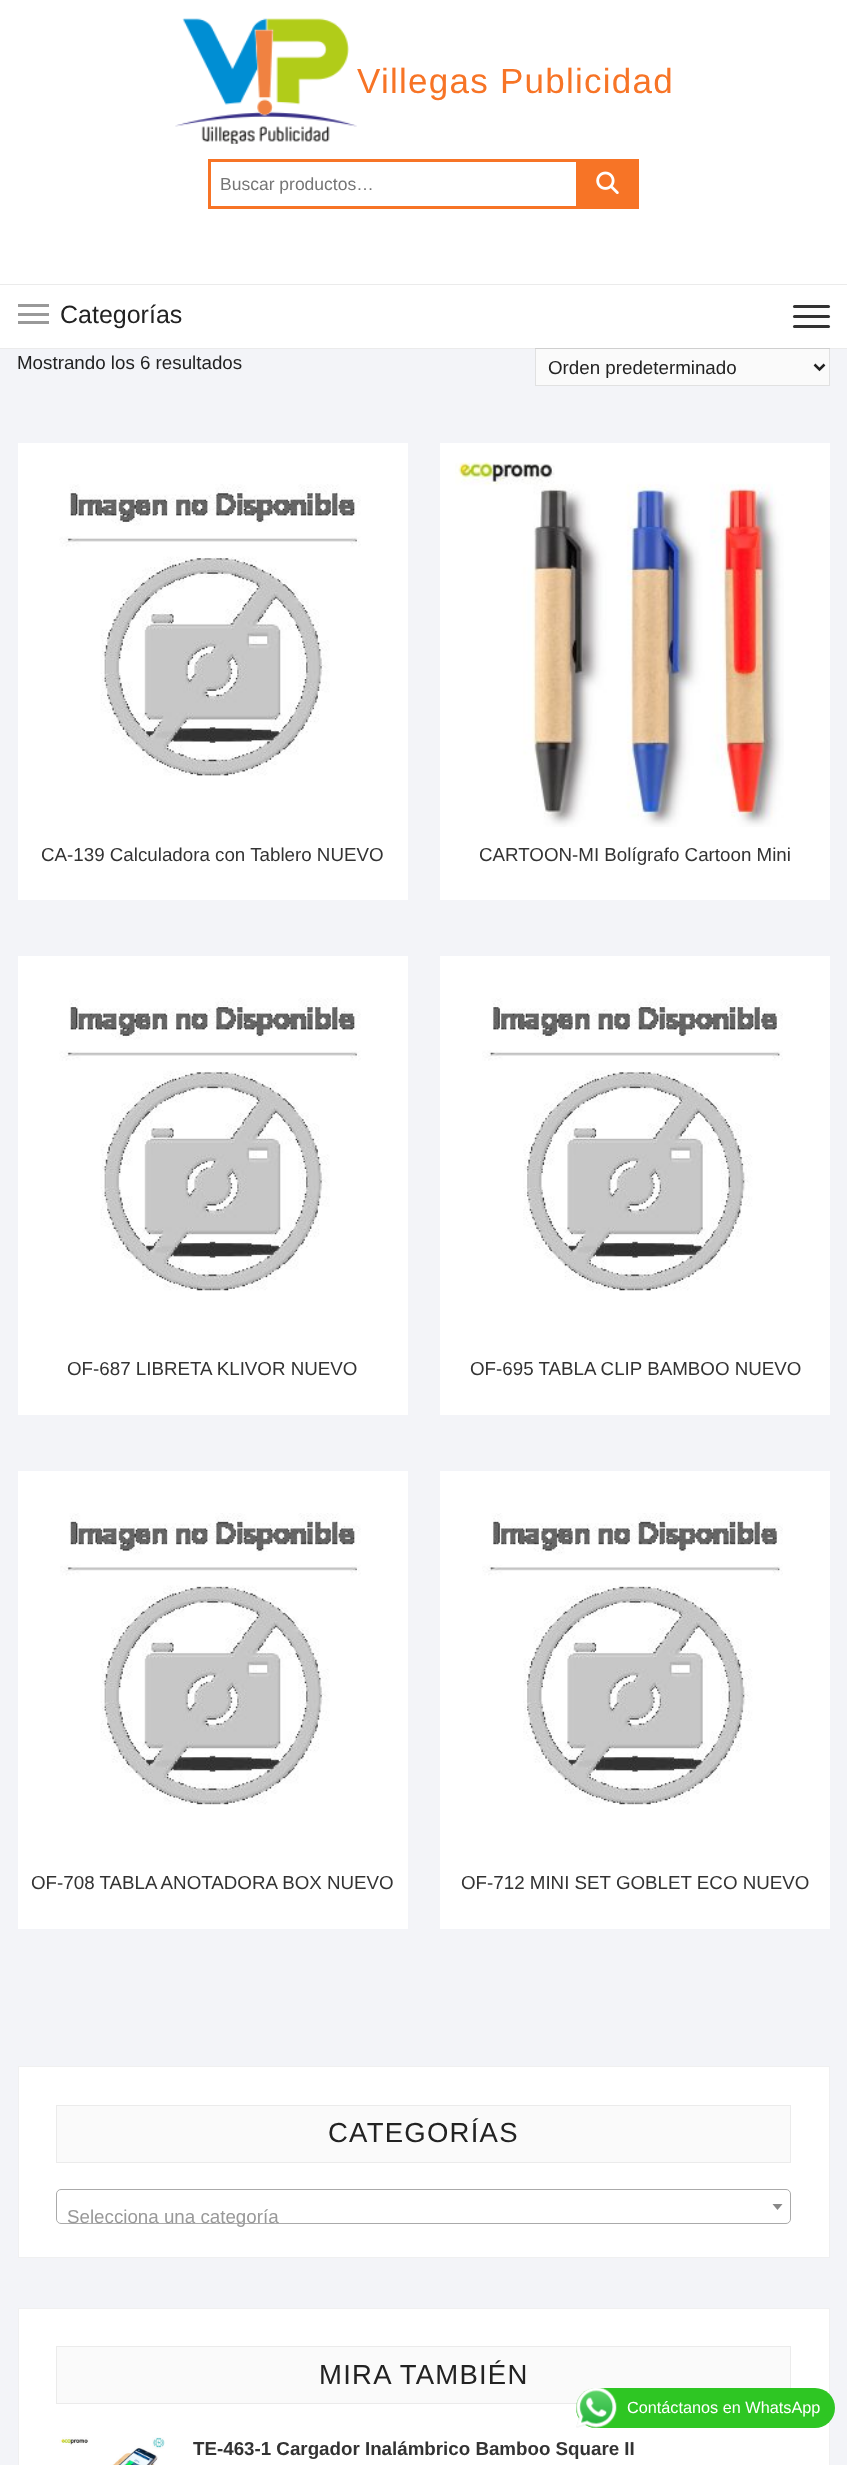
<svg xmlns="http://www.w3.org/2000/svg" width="847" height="2465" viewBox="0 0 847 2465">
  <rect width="100%" height="100%" fill="#f3f4f8"/>
  <rect x="0" y="0" width="847" height="349" fill="#ffffff"/>
  <image x="175" y="18" width="182" height="126" href="img1.png"/>
  <text x="357" y="93" font-family="Liberation Sans" font-size="35" letter-spacing="1.25" fill="#f77426">Villegas Publicidad</text>
  <rect x="208" y="159" width="370" height="3" fill="#f77426"/>
  <rect x="208" y="206" width="370" height="3" fill="#f77426"/>
  <rect x="208" y="159" width="3" height="50" fill="#f77426"/>
  <text x="220" y="190" font-family="Liberation Sans" font-size="17.5" fill="#757575">Buscar productos…</text>
  <rect x="576" y="159" width="63" height="50" fill="#f77426"/>
  <image x="596" y="171" width="23" height="23" href="img2.png"/>
  <rect x="0" y="284" width="847" height="1" fill="#ebebeb"/>
  <rect x="535.5" y="348.5" width="294" height="37" fill="#fafafa" stroke="#e1e1e1"/>
  <rect x="0" y="348" width="847" height="1" fill="#000000" fill-opacity="0.08"/>
  <rect x="18" y="313" width="31" height="3" fill="#999999"/>
  <rect x="18" y="304" width="31" height="3" fill="#999999"/>
  <rect x="18" y="321" width="31" height="3" fill="#999999"/>
  <text x="60" y="323" font-family="Liberation Sans" font-size="25" fill="#222222">Categorías</text>
  <rect x="793" y="315" width="37" height="3" rx="1.5" fill="#333333"/>
  <rect x="793" y="305" width="37" height="3" rx="1.5" fill="#333333"/>
  <rect x="793" y="325" width="37" height="3" rx="1.5" fill="#333333"/>
  <text x="17" y="369" font-family="Liberation Sans" font-size="18.75" fill="#222222">Mostrando los 6 resultados</text>
  <path d="M814.5 364.5L819.5 369.5L824.5 364.5" fill="none" stroke="#222222" stroke-width="2.5"/>
  <text x="548" y="374" font-family="Liberation Sans" font-size="18.75" fill="#222222">Orden predeterminado</text>
  <rect x="18" y="443" width="390" height="457" fill="#ffffff"/>
  <image x="59" y="484" width="302" height="292" href="img3.png"/>
  <text x="41" y="861" font-family="Liberation Sans" font-size="18.75" fill="#333333">CA-139 Calculadora con Tablero NUEVO</text>
  <rect x="440" y="443" width="390" height="457" fill="#ffffff"/>
  <image x="455" y="462" width="329" height="365" href="img4.png"/>
  <text x="479" y="861" font-family="Liberation Sans" font-size="18.75" fill="#333333">CARTOON-MI Bolígrafo Cartoon Mini</text>
  <rect x="18" y="956" width="390" height="459" fill="#ffffff"/>
  <image x="59" y="998" width="302" height="293" href="img5.png"/>
  <text x="67" y="1375" font-family="Liberation Sans" font-size="18.75" fill="#333333">OF-687 LIBRETA KLIVOR NUEVO</text>
  <rect x="440" y="956" width="390" height="459" fill="#ffffff"/>
  <image x="482" y="998" width="301" height="293" href="img6.png"/>
  <text x="470" y="1375" font-family="Liberation Sans" font-size="18.75" fill="#333333">OF-695 TABLA CLIP BAMBOO NUEVO</text>
  <rect x="18" y="1471" width="390" height="458" fill="#ffffff"/>
  <image x="60" y="1513" width="301" height="292" href="img7.png"/>
  <text x="31" y="1889" font-family="Liberation Sans" font-size="18.75" fill="#333333">OF-708 TABLA ANOTADORA BOX NUEVO</text>
  <rect x="440" y="1471" width="390" height="458" fill="#ffffff"/>
  <image x="482" y="1513" width="301" height="292" href="img8.png"/>
  <text x="461" y="1889" font-family="Liberation Sans" font-size="18.75" fill="#333333">OF-712 MINI SET GOBLET ECO NUEVO</text>
  <rect x="18.5" y="2066.5" width="811" height="191" fill="#ffffff" stroke="#f0f0f0"/>
  <rect x="56.5" y="2105.5" width="734" height="57" fill="#fafafa" stroke="#ebebeb"/>
  <text x="328" y="2142" font-family="Liberation Sans" font-size="27.5" letter-spacing="1.25" fill="#222222">CATEGORÍAS</text>
  <rect x="56.5" y="2189.5" width="734" height="34" rx="4.5" fill="none" stroke="#aaaaaa"/>
  <path d="M772.5 2204H782.5L777.5 2210Z" fill="#888888"/>
  <text x="67" y="2223" font-family="Liberation Sans" font-size="18.75" fill="#999999">Selecciona una categoría</text>
  <rect x="18.5" y="2308.5" width="811" height="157" fill="#ffffff" stroke="#f0f0f0"/>
  <rect x="56.5" y="2346.5" width="734" height="57" fill="#fafafa" stroke="#ebebeb"/>
  <text x="319" y="2384" font-family="Liberation Sans" font-size="27.5" letter-spacing="1.25" fill="#222222">MIRA TAMBIÉN</text>
  <image x="59" y="2437" width="106" height="28" href="img9.png"/>
  <text x="193" y="2455" font-family="Liberation Sans" font-size="18.75" font-weight="bold" fill="#333333">TE-463-1 Cargador Inalámbrico Bamboo Square II</text>
  <rect x="576" y="2388" width="259" height="40" rx="20" fill="#2ec623"/>
  <image x="576" y="2388" width="41" height="40" href="img10.png"/>
  <text x="627" y="2413" font-family="Liberation Sans" font-size="16.25" fill="#ffffff">Contáctanos en WhatsApp</text>
</svg>
